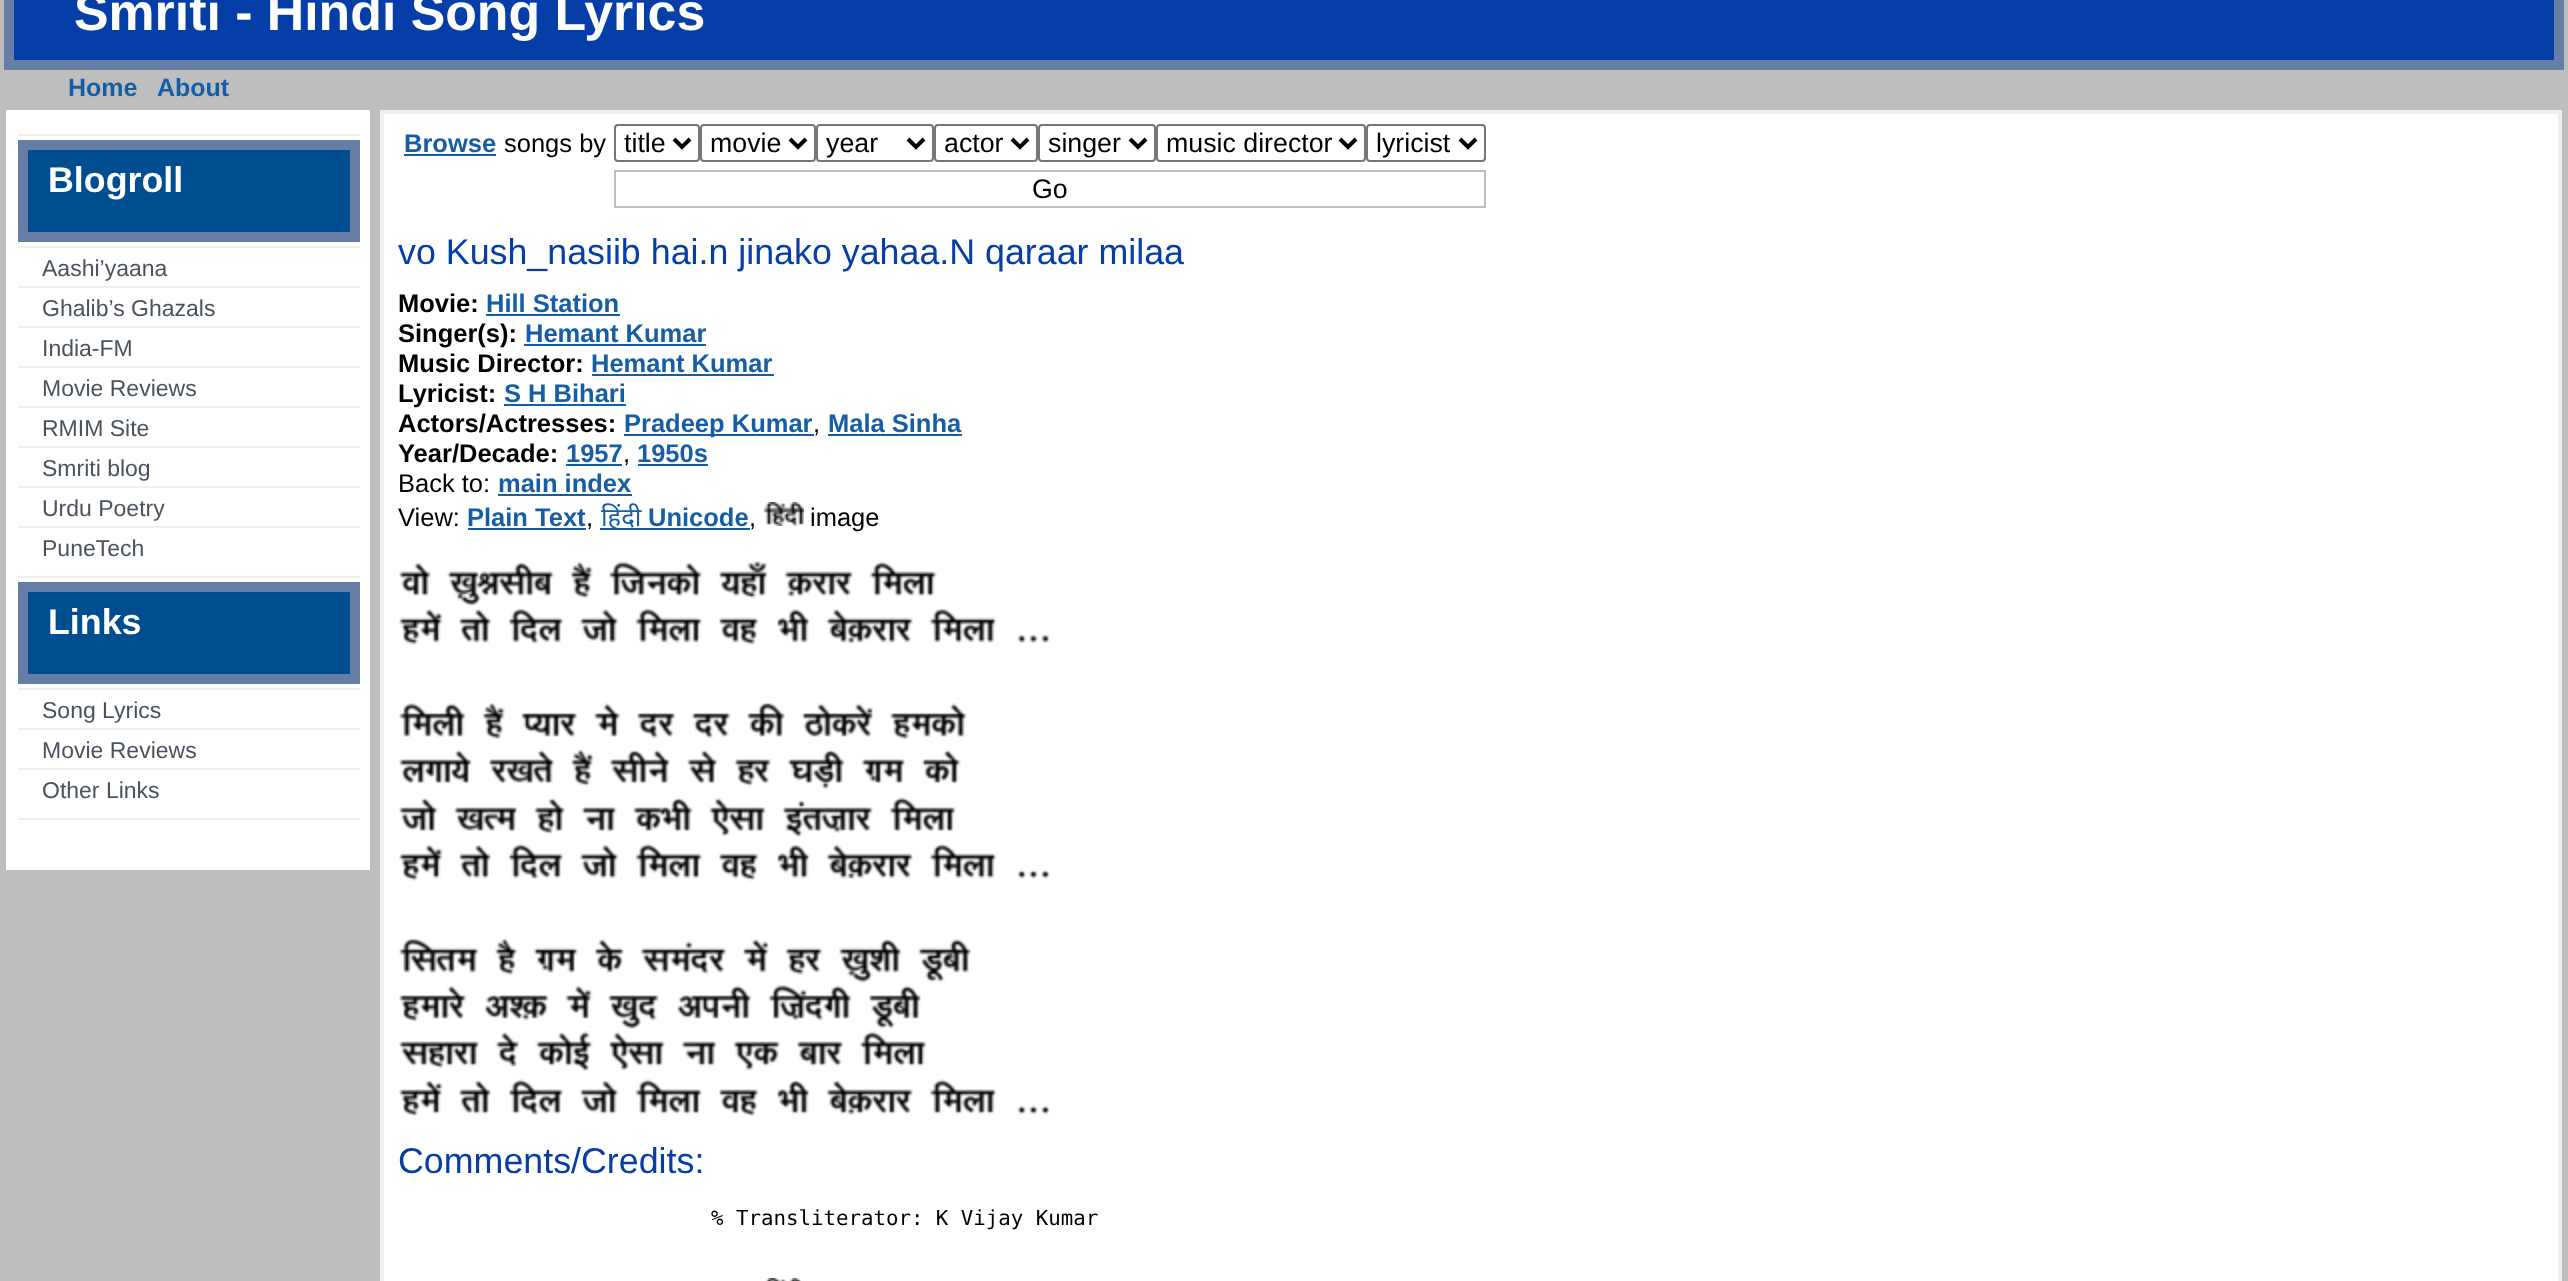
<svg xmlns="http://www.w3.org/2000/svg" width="2568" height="1281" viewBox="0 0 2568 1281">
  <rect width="100%" height="100%" fill="#bebebe"/>
  <rect x="9" y="-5" width="2550" height="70" fill="#053ea6" stroke="#667da6" stroke-width="10"/>
  <text x="74" y="30" font-family="Liberation Sans" font-size="51.8" font-weight="bold" fill="#ffffff">Smriti - Hindi Song Lyrics</text>
  <text x="68" y="96" font-family="Liberation Sans" font-size="25" font-weight="bold" fill="#155ea5">Home</text>
  <text x="157" y="96" font-family="Liberation Sans" font-size="25" font-weight="bold" fill="#155ea5">About</text>
  <rect x="6" y="110" width="364" height="760" fill="#ffffff"/>
  <rect x="18" y="134" width="342" height="2" fill="#efefef"/>
  <rect x="18" y="576" width="342" height="2" fill="#efefef"/>
  <rect x="23" y="145" width="332" height="92" fill="#004d90" stroke="#667da6" stroke-width="10"/>
  <text x="48" y="192" font-family="Liberation Sans" font-size="35.8" font-weight="bold" fill="#ffffff">Blogroll</text>
  <rect x="18" y="246" width="342" height="2" fill="#efefef"/>
  <text x="42" y="276" font-family="Liberation Sans" font-size="23" fill="#4a535d">Aashi’yaana</text>
  <rect x="18" y="286" width="342" height="2" fill="#efefef"/>
  <text x="42" y="316" font-family="Liberation Sans" font-size="23" fill="#4a535d">Ghalib’s Ghazals</text>
  <rect x="18" y="326" width="342" height="2" fill="#efefef"/>
  <text x="42" y="356" font-family="Liberation Sans" font-size="23" fill="#4a535d">India-FM</text>
  <rect x="18" y="366" width="342" height="2" fill="#efefef"/>
  <text x="42" y="396" font-family="Liberation Sans" font-size="23" fill="#4a535d">Movie Reviews</text>
  <rect x="18" y="406" width="342" height="2" fill="#efefef"/>
  <text x="42" y="436" font-family="Liberation Sans" font-size="23" fill="#4a535d">RMIM Site</text>
  <rect x="18" y="446" width="342" height="2" fill="#efefef"/>
  <text x="42" y="476" font-family="Liberation Sans" font-size="23" fill="#4a535d">Smriti blog</text>
  <rect x="18" y="486" width="342" height="2" fill="#efefef"/>
  <text x="42" y="516" font-family="Liberation Sans" font-size="23" fill="#4a535d">Urdu Poetry</text>
  <rect x="18" y="526" width="342" height="2" fill="#efefef"/>
  <text x="42" y="556" font-family="Liberation Sans" font-size="23" fill="#4a535d">PuneTech</text>
  <rect x="18" y="818" width="342" height="2" fill="#efefef"/>
  <rect x="23" y="587" width="332" height="92" fill="#004d90" stroke="#667da6" stroke-width="10"/>
  <text x="48" y="634" font-family="Liberation Sans" font-size="35.8" font-weight="bold" fill="#ffffff">Links</text>
  <rect x="18" y="688" width="342" height="2" fill="#efefef"/>
  <text x="42" y="718" font-family="Liberation Sans" font-size="23" fill="#4a535d">Song Lyrics</text>
  <rect x="18" y="728" width="342" height="2" fill="#efefef"/>
  <text x="42" y="758" font-family="Liberation Sans" font-size="23" fill="#4a535d">Movie Reviews</text>
  <rect x="18" y="768" width="342" height="2" fill="#efefef"/>
  <text x="42" y="798" font-family="Liberation Sans" font-size="23" fill="#4a535d">Other Links</text>
  <rect x="380" y="110" width="2182" height="1171" fill="#efefef"/>
  <rect x="384" y="114" width="2174" height="1167" fill="#ffffff"/>
  <text x="404" y="152" font-family="Liberation Sans" font-size="25.5" font-weight="bold" fill="#155ea5">Browse</text>
  <rect x="404" y="154" width="92" height="2" fill="#155ea5"/>
  <text x="504" y="152" font-family="Liberation Sans" font-size="25.5" fill="#000000">songs by</text>
  <rect x="615" y="125" width="84" height="36" rx="3" fill="none" stroke="#767676" stroke-width="2"/>
  <path d="M674 139L682 147L690 139" fill="none" stroke="#000000" stroke-width="4"/>
  <text x="624" y="152" font-family="Liberation Sans" font-size="26.75" fill="#000000">title</text>
  <rect x="701" y="125" width="114" height="36" rx="3" fill="none" stroke="#767676" stroke-width="2"/>
  <path d="M790 139L798 147L806 139" fill="none" stroke="#000000" stroke-width="4"/>
  <text x="710" y="152" font-family="Liberation Sans" font-size="26.75" fill="#000000">movie</text>
  <rect x="817" y="125" width="116" height="36" rx="3" fill="none" stroke="#767676" stroke-width="2"/>
  <path d="M908 139L916 147L924 139" fill="none" stroke="#000000" stroke-width="4"/>
  <text x="826" y="152" font-family="Liberation Sans" font-size="26.75" fill="#000000">year</text>
  <rect x="935" y="125" width="102" height="36" rx="3" fill="none" stroke="#767676" stroke-width="2"/>
  <path d="M1012 139L1020 147L1028 139" fill="none" stroke="#000000" stroke-width="4"/>
  <text x="944" y="152" font-family="Liberation Sans" font-size="26.75" fill="#000000">actor</text>
  <rect x="1039" y="125" width="116" height="36" rx="3" fill="none" stroke="#767676" stroke-width="2"/>
  <path d="M1130 139L1138 147L1146 139" fill="none" stroke="#000000" stroke-width="4"/>
  <text x="1048" y="152" font-family="Liberation Sans" font-size="26.75" fill="#000000">singer</text>
  <rect x="1157" y="125" width="208" height="36" rx="3" fill="none" stroke="#767676" stroke-width="2"/>
  <path d="M1340 139L1348 147L1356 139" fill="none" stroke="#000000" stroke-width="4"/>
  <text x="1166" y="152" font-family="Liberation Sans" font-size="26.75" fill="#000000">music director</text>
  <rect x="1367" y="125" width="118" height="36" rx="3" fill="none" stroke="#767676" stroke-width="2"/>
  <path d="M1460 139L1468 147L1476 139" fill="none" stroke="#000000" stroke-width="4"/>
  <text x="1376" y="152" font-family="Liberation Sans" font-size="26.75" fill="#000000">lyricist</text>
  <rect x="615" y="171" width="870" height="36" fill="none" stroke="#bfbfbf" stroke-width="2"/>
  <text x="1032" y="198" font-family="Liberation Sans" font-size="26.75" fill="#000000">Go</text>
  <text x="398" y="264" font-family="Liberation Sans" font-size="35.8" fill="#053ea6">vo Kush_nasiib hai.n jinako yahaa.N qaraar milaa</text>
  <text x="398" y="312" font-family="Liberation Sans" font-size="25.5" font-weight="bold" fill="#000000">Movie:</text>
  <text x="486" y="312" font-family="Liberation Sans" font-size="25.5" font-weight="bold" fill="#155ea5">Hill Station</text>
  <rect x="486" y="314" width="134" height="2" fill="#155ea5"/>
  <text x="398" y="342" font-family="Liberation Sans" font-size="25.5" font-weight="bold" fill="#000000">Singer(s):</text>
  <text x="525" y="342" font-family="Liberation Sans" font-size="25.5" font-weight="bold" fill="#155ea5">Hemant Kumar</text>
  <rect x="524" y="344" width="182" height="2" fill="#155ea5"/>
  <text x="398" y="372" font-family="Liberation Sans" font-size="25.5" font-weight="bold" fill="#000000">Music Director:</text>
  <text x="591" y="372" font-family="Liberation Sans" font-size="25.5" font-weight="bold" fill="#155ea5">Hemant Kumar</text>
  <rect x="592" y="374" width="182" height="2" fill="#155ea5"/>
  <text x="398" y="402" font-family="Liberation Sans" font-size="25.5" font-weight="bold" fill="#000000">Lyricist:</text>
  <text x="504" y="402" font-family="Liberation Sans" font-size="25.5" font-weight="bold" fill="#155ea5">S H Bihari</text>
  <rect x="504" y="404" width="122" height="2" fill="#155ea5"/>
  <text x="398" y="432" font-family="Liberation Sans" font-size="25.5" font-weight="bold" fill="#000000">Actors/Actresses:</text>
  <rect x="624" y="434" width="190" height="2" fill="#155ea5"/>
  <text x="624" y="432" font-family="Liberation Sans" font-size="25.5" font-weight="bold" fill="#155ea5">Pradeep Kumar</text>
  <text x="813" y="432" font-family="Liberation Sans" font-size="25.5" fill="#000000">,</text>
  <text x="828" y="432" font-family="Liberation Sans" font-size="25.5" font-weight="bold" fill="#155ea5">Mala Sinha</text>
  <rect x="828" y="434" width="134" height="2" fill="#155ea5"/>
  <text x="398" y="462" font-family="Liberation Sans" font-size="25.5" font-weight="bold" fill="#000000">Year/Decade:</text>
  <text x="566" y="462" font-family="Liberation Sans" font-size="25.5" font-weight="bold" fill="#155ea5">1957</text>
  <rect x="566" y="464" width="56" height="2" fill="#155ea5"/>
  <text x="623" y="462" font-family="Liberation Sans" font-size="25.5" fill="#000000">,</text>
  <text x="637" y="462" font-family="Liberation Sans" font-size="25.5" font-weight="bold" fill="#155ea5">1950s</text>
  <rect x="638" y="464" width="70" height="2" fill="#155ea5"/>
  <text x="398" y="492" font-family="Liberation Sans" font-size="25.5" fill="#000000">Back to:</text>
  <text x="498" y="492" font-family="Liberation Sans" font-size="25.5" font-weight="bold" fill="#155ea5">main index</text>
  <rect x="498" y="494" width="134" height="2" fill="#155ea5"/>
  <text x="398" y="526" font-family="Liberation Sans" font-size="25.5" fill="#000000">View:</text>
  <text x="467" y="526" font-family="Liberation Sans" font-size="25.5" font-weight="bold" fill="#155ea5">Plain Text</text>
  <rect x="468" y="528" width="118" height="2" fill="#155ea5"/>
  <text x="586" y="526" font-family="Liberation Sans" font-size="25.5" fill="#000000">,</text>
  <rect x="600" y="528" width="150" height="2" fill="#155ea5"/>
  <text x="601" y="526" font-family="Noto Sans" font-size="25.5" fill="#155ea5">हिंदी</text>
  <text x="648" y="526" font-family="Liberation Sans" font-size="25.5" font-weight="bold" fill="#155ea5">Unicode</text>
  <text x="749" y="526" font-family="Liberation Sans" font-size="25.5" fill="#000000">,</text>
  <image x="764" y="502" width="40" height="24" href="img1.png"/>
  <text x="810" y="526" font-family="Liberation Sans" font-size="25.5" fill="#000000">image</text>
  <image x="399" y="561" width="651" height="555" href="img2.png"/>
  <text x="398" y="1173" font-family="Liberation Sans" font-size="35.8" fill="#053ea6">Comments/Credits:</text>
  <text x="711" y="1225" font-family="DejaVu Sans Mono" font-size="20.75" fill="#000000">% Transliterator: K Vijay Kumar</text>
  <image x="765" y="1278" width="36" height="3" href="img3.png"/>
</svg>
